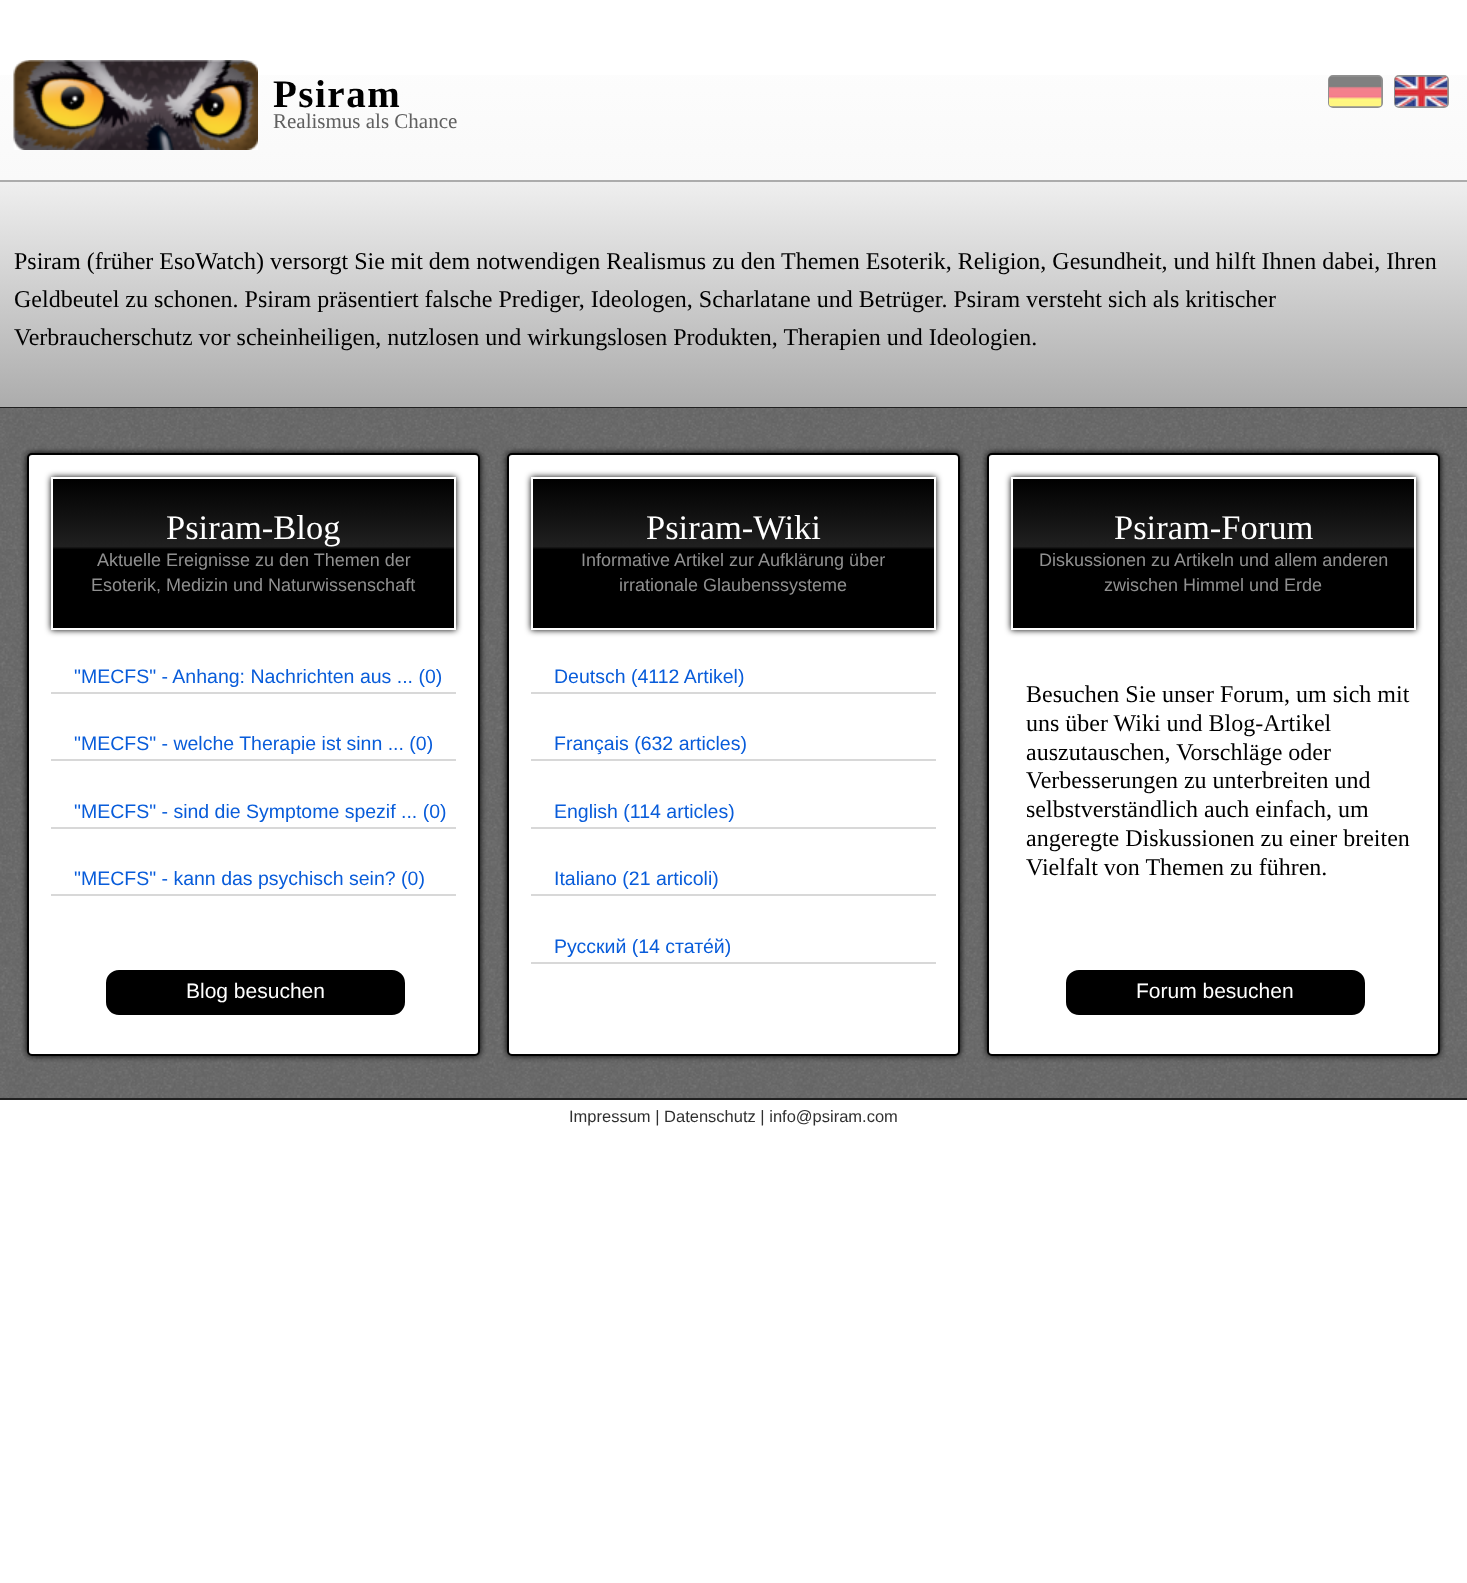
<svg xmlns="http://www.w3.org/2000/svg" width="1467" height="1583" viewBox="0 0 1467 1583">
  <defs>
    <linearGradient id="g1" gradientUnits="userSpaceOnUse" x1="0" y1="180" x2="0" y2="0"><stop offset="0" stop-color="#f9f9f9"/><stop offset="1" stop-color="#ffffff"/></linearGradient>
    <linearGradient id="g2" gradientUnits="userSpaceOnUse" x1="0" y1="407" x2="0" y2="182"><stop offset="0" stop-color="#acacac"/><stop offset="1" stop-color="#efefef"/></linearGradient>
    <filter id="blur1" x="-50%" y="-200%" width="200%" height="500%"><feGaussianBlur stdDeviation="3"/></filter>
    <linearGradient id="g3" gradientUnits="userSpaceOnUse" x1="53" y1="629" x2="53" y2="479"><stop offset="0" stop-color="#000000"/><stop offset="0.53" stop-color="#000000"/><stop offset="0.55" stop-color="#202020"/><stop offset="1" stop-color="#000000"/></linearGradient>
    <linearGradient id="g4" gradientUnits="userSpaceOnUse" x1="533" y1="629" x2="533" y2="479"><stop offset="0" stop-color="#000000"/><stop offset="0.53" stop-color="#000000"/><stop offset="0.55" stop-color="#202020"/><stop offset="1" stop-color="#000000"/></linearGradient>
    <linearGradient id="g5" gradientUnits="userSpaceOnUse" x1="1013" y1="629" x2="1013" y2="479"><stop offset="0" stop-color="#000000"/><stop offset="0.53" stop-color="#000000"/><stop offset="0.55" stop-color="#202020"/><stop offset="1" stop-color="#000000"/></linearGradient>
  </defs>
  <rect width="100%" height="100%" fill="#ffffff"/>
  <rect x="0" y="75" width="1467" height="105" fill="url(#g1)"/>
  <rect x="0" y="180" width="1467" height="2" fill="#acacac"/>
  <image x="13" y="60" width="245" height="90" href="img1.png"/>
  <text x="273" y="107" font-family="Liberation Serif" font-size="39" font-weight="bold" letter-spacing="1.5" fill="#000000">Psiram</text>
  <text x="273" y="128" font-family="Liberation Serif" font-size="21" fill="#606060">Realismus als Chance</text>
  <rect x="1329" y="76" width="53" height="31" rx="4" fill="none" stroke="#909090" stroke-width="2"/>
  <rect x="1395" y="76" width="53" height="31" rx="4" fill="none" stroke="#909090" stroke-width="2"/>
  <image x="1329" y="76" width="53" height="31" href="img2.png"/>
  <image x="1395" y="76" width="53" height="31" href="img3.png"/>
  <rect x="0" y="182" width="1467" height="225" fill="url(#g2)"/>
  <rect x="0" y="407" width="1467" height="1" fill="#202020"/>
  <text x="14" y="269" font-family="Liberation Serif" font-size="24" fill="#000000">Psiram (früher EsoWatch) versorgt Sie mit dem notwendigen Realismus zu den Themen Esoterik, Religion, Gesundheit, und hilft Ihnen dabei, Ihren</text>
  <text x="14" y="307" font-family="Liberation Serif" font-size="24" fill="#000000">Geldbeutel zu schonen. Psiram präsentiert falsche Prediger, Ideologen, Scharlatane und Betrüger. Psiram versteht sich als kritischer</text>
  <text x="14" y="345" font-family="Liberation Serif" font-size="24" fill="#000000">Verbraucherschutz vor scheinheiligen, nutzlosen und wirkungslosen Produkten, Therapien und Ideologien.</text>
  <image x="0" y="408" width="1467" height="690" href="img4.png"/>
  <rect x="0" y="1098" width="1467" height="2" fill="#202020"/>
  <rect x="27" y="453" width="453" height="603" rx="5" fill="#000000" filter="url(#blur1)"/>
  <rect x="28" y="454" width="451" height="601" rx="4" fill="#ffffff" stroke="#000000" stroke-width="2"/>
  <rect x="51" y="477" width="405" height="153" fill="#000000" filter="url(#blur1)"/>
  <rect x="53" y="479" width="401" height="149" fill="url(#g3)"/>
  <rect x="52" y="478" width="403" height="151" fill="none" stroke="#ffffff" stroke-width="2"/>
  <text x="166" y="539" font-family="Liberation Serif" font-size="34.5" fill="#ffffff">Psiram-Blog</text>
  <text x="97" y="566" font-family="Liberation Sans" font-size="18" fill="#909090">Aktuelle Ereignisse zu den Themen der</text>
  <text x="91" y="591" font-family="Liberation Sans" font-size="18" fill="#909090">Esoterik, Medizin und Naturwissenschaft</text>
  <rect x="51" y="692" width="405" height="2" fill="#d8d8d8"/>
  <text x="74" y="683" font-family="Liberation Sans" font-size="19.5" fill="#085cda">"MECFS" - Anhang: Nachrichten aus ... (0)</text>
  <rect x="51" y="759" width="405" height="2" fill="#d8d8d8"/>
  <text x="74" y="750" font-family="Liberation Sans" font-size="19.5" fill="#085cda">"MECFS" - welche Therapie ist sinn ... (0)</text>
  <rect x="51" y="827" width="405" height="2" fill="#d8d8d8"/>
  <text x="74" y="818" font-family="Liberation Sans" font-size="19.5" fill="#085cda">"MECFS" - sind die Symptome spezif ... (0)</text>
  <rect x="51" y="894" width="405" height="2" fill="#d8d8d8"/>
  <text x="74" y="885" font-family="Liberation Sans" font-size="19.5" fill="#085cda">"MECFS" - kann das psychisch sein? (0)</text>
  <rect x="105" y="969" width="301" height="47" rx="14" fill="#000000" stroke="#ffffff" stroke-width="2"/>
  <text x="186" y="998" font-family="Liberation Sans" font-size="21" fill="#ffffff">Blog besuchen</text>
  <rect x="507" y="453" width="453" height="603" rx="5" fill="#000000" filter="url(#blur1)"/>
  <rect x="508" y="454" width="451" height="601" rx="4" fill="#ffffff" stroke="#000000" stroke-width="2"/>
  <rect x="531" y="477" width="405" height="153" fill="#000000" filter="url(#blur1)"/>
  <rect x="533" y="479" width="401" height="149" fill="url(#g4)"/>
  <rect x="532" y="478" width="403" height="151" fill="none" stroke="#ffffff" stroke-width="2"/>
  <text x="646" y="539" font-family="Liberation Serif" font-size="34.5" fill="#ffffff">Psiram-Wiki</text>
  <text x="581" y="566" font-family="Liberation Sans" font-size="18" fill="#909090">Informative Artikel zur Aufklärung über</text>
  <text x="619" y="591" font-family="Liberation Sans" font-size="18" fill="#909090">irrationale Glaubenssysteme</text>
  <rect x="531" y="692" width="405" height="2" fill="#d8d8d8"/>
  <text x="554" y="683" font-family="Liberation Sans" font-size="19.5" fill="#085cda">Deutsch (4112 Artikel)</text>
  <rect x="531" y="759" width="405" height="2" fill="#d8d8d8"/>
  <text x="554" y="750" font-family="Liberation Sans" font-size="19.5" fill="#085cda">Français (632 articles)</text>
  <rect x="531" y="827" width="405" height="2" fill="#d8d8d8"/>
  <text x="554" y="818" font-family="Liberation Sans" font-size="19.5" fill="#085cda">English (114 articles)</text>
  <rect x="531" y="894" width="405" height="2" fill="#d8d8d8"/>
  <text x="554" y="885" font-family="Liberation Sans" font-size="19.5" fill="#085cda">Italiano (21 articoli)</text>
  <rect x="531" y="962" width="405" height="2" fill="#d8d8d8"/>
  <text x="554" y="953" font-family="Liberation Sans" font-size="19.5" fill="#085cda">Русский (14 стате́й)</text>
  <rect x="987" y="453" width="453" height="603" rx="5" fill="#000000" filter="url(#blur1)"/>
  <rect x="988" y="454" width="451" height="601" rx="4" fill="#ffffff" stroke="#000000" stroke-width="2"/>
  <rect x="1011" y="477" width="405" height="153" fill="#000000" filter="url(#blur1)"/>
  <rect x="1013" y="479" width="401" height="149" fill="url(#g5)"/>
  <rect x="1012" y="478" width="403" height="151" fill="none" stroke="#ffffff" stroke-width="2"/>
  <text x="1114" y="539" font-family="Liberation Serif" font-size="34.5" fill="#ffffff">Psiram-Forum</text>
  <text x="1039" y="566" font-family="Liberation Sans" font-size="18" fill="#909090">Diskussionen zu Artikeln und allem anderen</text>
  <text x="1104" y="591" font-family="Liberation Sans" font-size="18" fill="#909090">zwischen Himmel und Erde</text>
  <text x="1026" y="702" font-family="Liberation Serif" font-size="24" fill="#000000">Besuchen Sie unser Forum, um sich mit</text>
  <text x="1026" y="731" font-family="Liberation Serif" font-size="24" fill="#000000">uns über Wiki und Blog-Artikel</text>
  <text x="1026" y="760" font-family="Liberation Serif" font-size="24" fill="#000000">auszutauschen, Vorschläge oder</text>
  <text x="1026" y="788" font-family="Liberation Serif" font-size="24" fill="#000000">Verbesserungen zu unterbreiten und</text>
  <text x="1026" y="817" font-family="Liberation Serif" font-size="24" fill="#000000">selbstverständlich auch einfach, um</text>
  <text x="1026" y="846" font-family="Liberation Serif" font-size="24" fill="#000000">angeregte Diskussionen zu einer breiten</text>
  <text x="1026" y="875" font-family="Liberation Serif" font-size="24" fill="#000000">Vielfalt von Themen zu führen.</text>
  <rect x="1065" y="969" width="301" height="47" rx="14" fill="#000000" stroke="#ffffff" stroke-width="2"/>
  <text x="1136" y="998" font-family="Liberation Sans" font-size="21" fill="#ffffff">Forum besuchen</text>
  <text x="569" y="1122" font-family="Liberation Sans" font-size="16.5" fill="#303030">Impressum | Datenschutz | info@psiram.com</text>
</svg>
